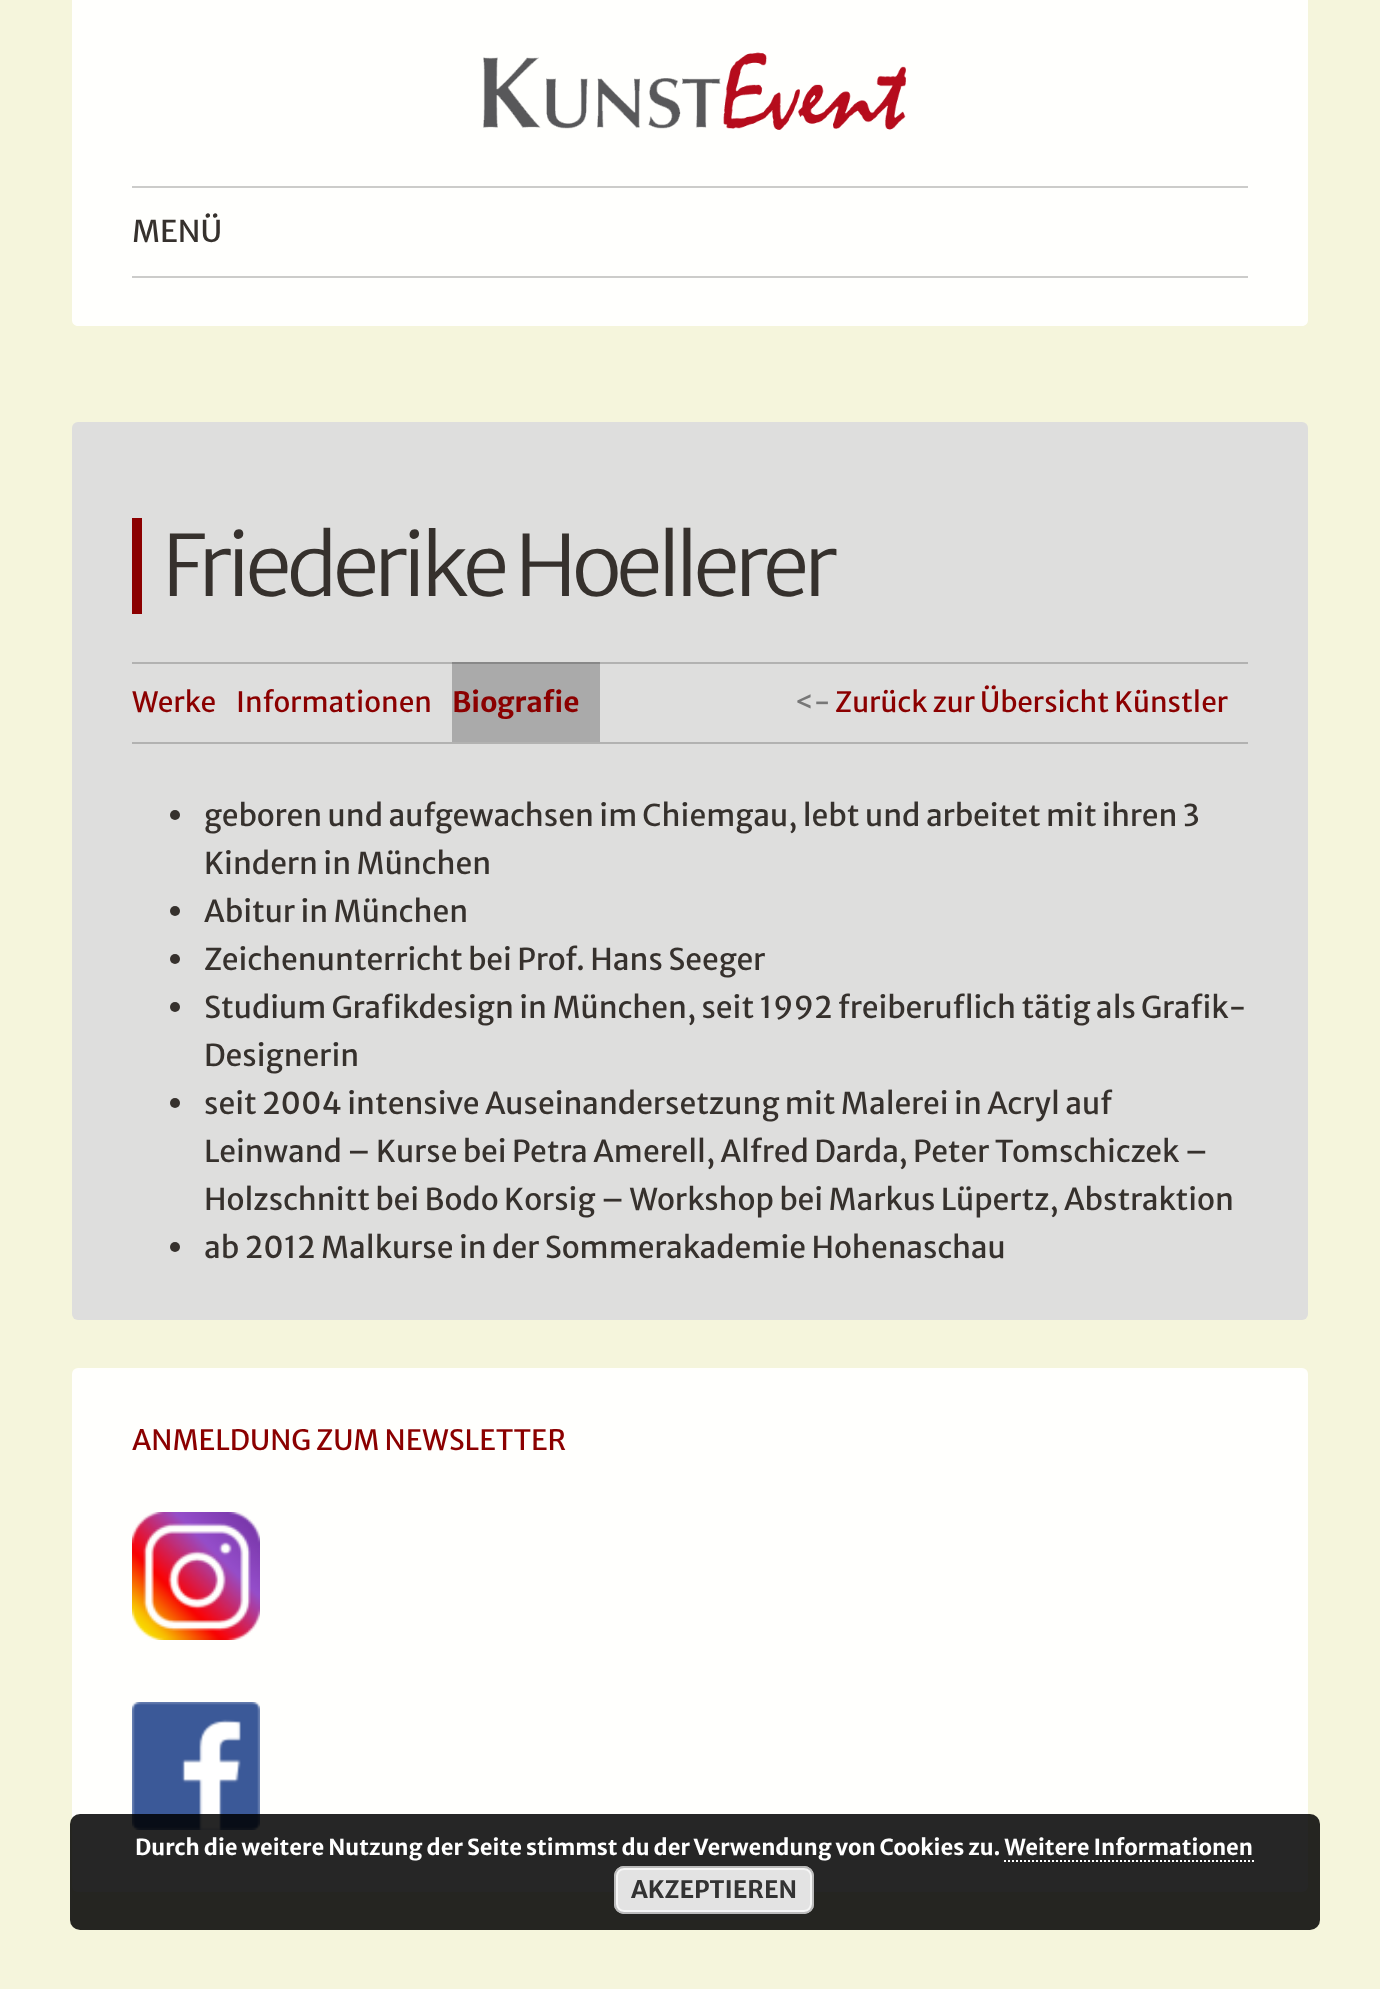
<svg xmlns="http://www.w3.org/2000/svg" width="1380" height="1989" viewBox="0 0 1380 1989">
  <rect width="100%" height="100%" fill="#f5f5dc"/>
  <path d="M72 0H1308V320C1308 323.5 1305.5 326 1302 326H78C74.5 326 72 323.5 72 320Z" fill="#fffffd"/>
  <image x="483" y="52" width="423" height="78" href="img1.png"/>
  <rect x="132" y="186" width="1116" height="2" fill="#ccccca"/>
  <rect x="132" y="276" width="1116" height="2" fill="#ccccca"/>
  <text x="132" y="242" font-family="Merriweather Sans" font-size="30" fill="#36312d">MENÜ</text>
  <rect x="72" y="422" width="1236" height="898" rx="6" fill="#dededd"/>
  <rect x="132" y="518" width="10" height="96" fill="#8b0000"/>
  <text x="162" y="596" font-family="Merriweather Sans" font-size="84" font-weight="300" letter-spacing="-5" fill="#36312d">Friederike Hoellerer</text>
  <rect x="132" y="742" width="1116" height="2" fill="#b2b2b1"/>
  <rect x="132" y="662" width="320" height="2" fill="#b2b2b1"/>
  <text x="132" y="712" font-family="Merriweather Sans" font-size="28" fill="#8b0000">Werke</text>
  <text x="236" y="712" font-family="Merriweather Sans" font-size="28" fill="#8b0000">Informationen</text>
  <rect x="452" y="664" width="148" height="78" fill="#aaaaaa"/>
  <rect x="452" y="662" width="148" height="2" fill="#888888"/>
  <text x="452" y="712" font-family="Merriweather Sans" font-size="28" font-weight="bold" fill="#8b0000">Biografie</text>
  <rect x="600" y="662" width="648" height="2" fill="#b2b2b1"/>
  <text x="795" y="712" font-family="Merriweather Sans" font-size="28" fill="#777777">&lt;-</text>
  <text x="835" y="712" font-family="Merriweather Sans" font-size="28" fill="#8b0000">Zurück zur Übersicht Künstler</text>
  <circle cx="175" cy="815" r="5" fill="#36312d"/>
  <text x="204" y="826" font-family="Merriweather Sans" font-size="30" fill="#36312d">geboren und aufgewachsen im Chiemgau, lebt und arbeitet mit ihren 3</text>
  <text x="204" y="874" font-family="Merriweather Sans" font-size="30" fill="#36312d">Kindern in München</text>
  <circle cx="175" cy="911" r="5" fill="#36312d"/>
  <text x="204" y="922" font-family="Merriweather Sans" font-size="30" fill="#36312d">Abitur in München</text>
  <circle cx="175" cy="959" r="5" fill="#36312d"/>
  <text x="204" y="970" font-family="Merriweather Sans" font-size="30" fill="#36312d">Zeichenunterricht bei Prof. Hans Seeger</text>
  <circle cx="175" cy="1007" r="5" fill="#36312d"/>
  <text x="204" y="1018" font-family="Merriweather Sans" font-size="30" fill="#36312d">Studium Grafikdesign in München, seit 1992 freiberuflich tätig als Grafik-</text>
  <text x="204" y="1066" font-family="Merriweather Sans" font-size="30" fill="#36312d">Designerin</text>
  <circle cx="175" cy="1103" r="5" fill="#36312d"/>
  <text x="204" y="1114" font-family="Merriweather Sans" font-size="30" fill="#36312d">seit 2004 intensive Auseinandersetzung mit Malerei in Acryl auf</text>
  <text x="204" y="1162" font-family="Merriweather Sans" font-size="30" fill="#36312d">Leinwand – Kurse bei Petra Amerell, Alfred Darda, Peter Tomschiczek –</text>
  <text x="204" y="1210" font-family="Merriweather Sans" font-size="30" fill="#36312d">Holzschnitt bei Bodo Korsig – Workshop bei Markus Lüpertz, Abstraktion</text>
  <circle cx="175" cy="1247" r="5" fill="#36312d"/>
  <text x="204" y="1258" font-family="Merriweather Sans" font-size="30" fill="#36312d">ab 2012 Malkurse in der Sommerakademie Hohenaschau</text>
  <rect x="72" y="1368" width="1236" height="524" rx="6" fill="#fffffd"/>
  <text x="132" y="1450" font-family="Merriweather Sans" font-size="28" fill="#8b0000">ANMELDUNG ZUM NEWSLETTER</text>
  <image x="132" y="1512" width="128" height="128" href="img2.png"/>
  <image x="132" y="1702" width="128" height="128" href="img3.png"/>
  <rect x="70" y="1814" width="1250" height="116" rx="10" fill="#000000" fill-opacity="0.85"/>
  <text x="135" y="1855" font-family="Merriweather Sans" font-size="22" font-weight="bold" fill="#ffffff">Durch die weitere Nutzung der Seite stimmst du der Verwendung von Cookies zu. Weitere Informationen</text>
  <path d="M1004 1861H1254" fill="none" stroke="#ffffff" stroke-width="2" stroke-dasharray="2 2"/>
  <rect x="614" y="1866" width="200" height="48" rx="10" fill="#e3e3e3"/>
  <rect x="617" y="1869" width="194" height="42" rx="7" fill="none" stroke="#f6f6f6" stroke-width="2"/>
  <rect x="615" y="1867" width="198" height="46" rx="9" fill="none" stroke="#bbbbbb" stroke-width="2"/>
  <text x="631" y="1898" font-family="Merriweather Sans" font-size="24" font-weight="bold" fill="#333333">AKZEPTIEREN</text>
</svg>
